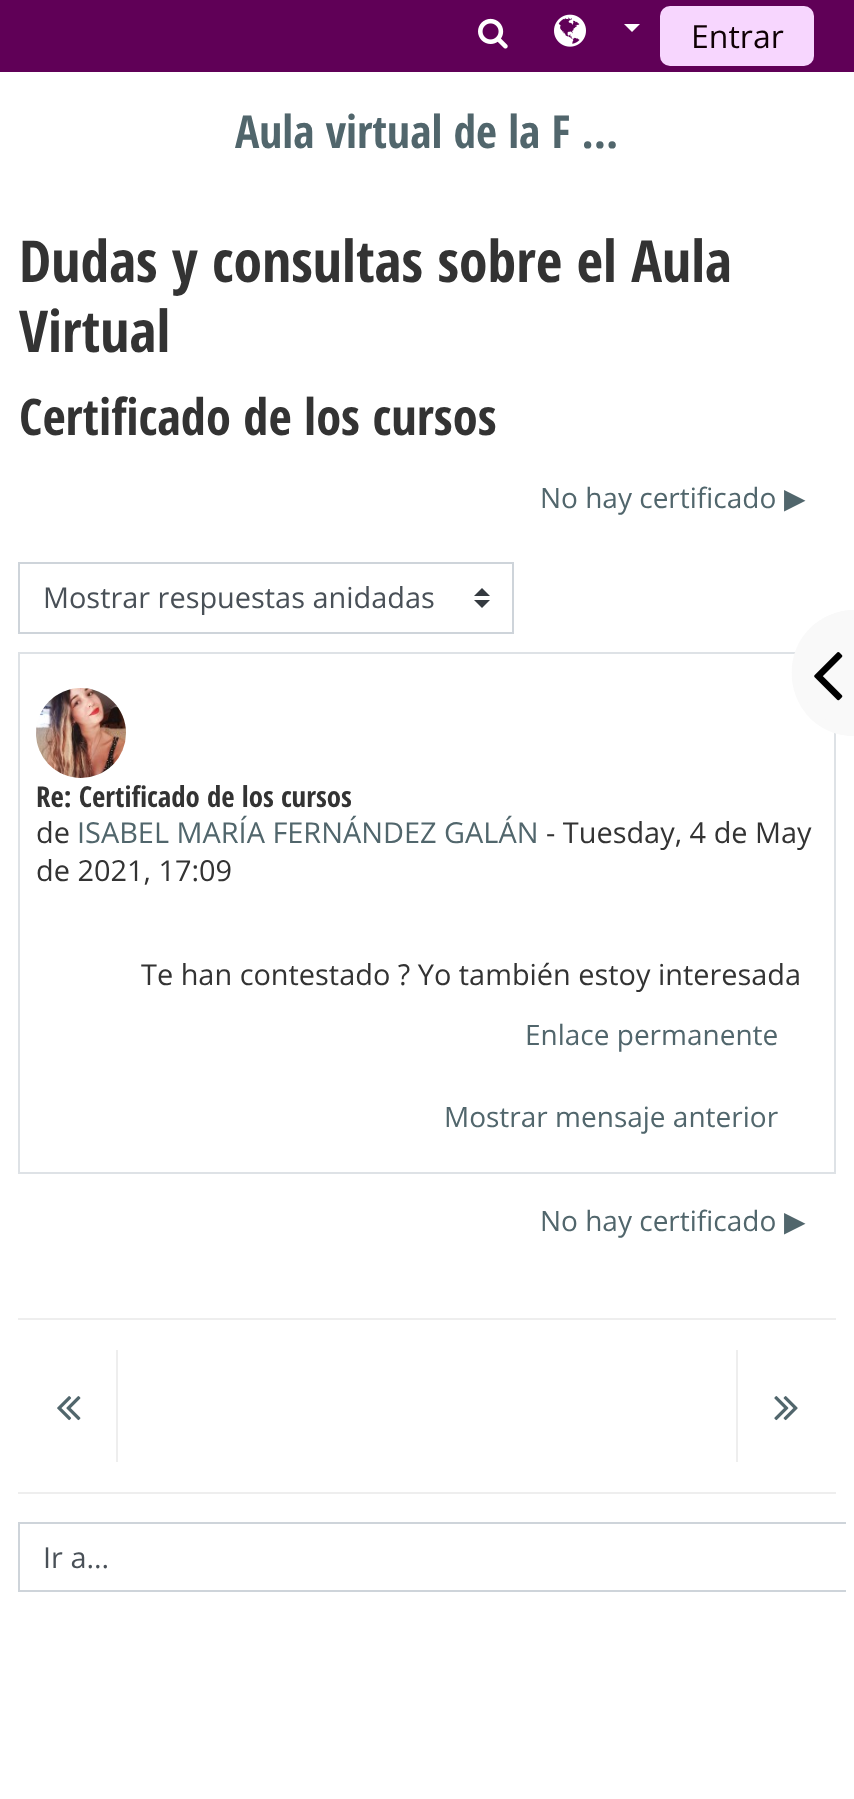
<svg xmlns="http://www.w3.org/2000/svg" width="854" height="1799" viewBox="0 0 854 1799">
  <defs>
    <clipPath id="clip1"><rect x="8" y="224" width="838" height="1378"/></clipPath>
  </defs>
  <rect width="100%" height="100%" fill="#ffffff"/>
  <rect x="0" y="0" width="854" height="72" fill="#600057"/>
  <image x="478" y="18" width="30" height="31" href="img1.png"/>
  <image x="554" y="14" width="32" height="33" href="img2.png"/>
  <path d="M624 24H640L632 32Z" fill="#ffffff"/>
  <rect x="660" y="6" width="154" height="60" rx="10" fill="#f7d6fe"/>
  <text x="691" y="48" font-family="Open Sans" font-size="32" fill="#0f0004">Entrar</text>
  <text x="235" y="148" font-family="Open Sans Condensed" font-size="45.5" font-weight="bold" fill="#51666c">Aula virtual de la F ...</text>
  <text x="19" y="282" font-family="Open Sans Condensed" font-size="57.75" font-weight="bold" fill="#333333">Dudas y consultas sobre el Aula</text>
  <text x="19" y="352" font-family="Open Sans Condensed" font-size="57.75" font-weight="bold" fill="#333333">Virtual</text>
  <text x="19" y="435" font-family="Open Sans Condensed" font-size="50.5" font-weight="bold" fill="#333333">Certificado de los cursos</text>
  <text x="540" y="508" font-family="Open Sans" font-size="28" fill="#51666c">No hay certificado</text>
  <text x="784" y="508" font-family="DejaVu Sans" font-size="28" fill="#51666c">▶︎</text>
  <path d="M482 588L474 596H490ZM482 608L474 600H490Z" fill="#343a40"/>
  <rect x="19" y="563" width="494" height="70" fill="none" stroke="#ced4da" stroke-width="2"/>
  <text x="43" y="608" font-family="Open Sans" font-size="28.9" fill="#495057">Mostrar respuestas anidadas</text>
  <rect x="19" y="653" width="816" height="520" fill="none" stroke="#dee2e6" stroke-width="2"/>
  <image x="36" y="688" width="90" height="90" href="img3.png"/>
  <text x="36" y="807" font-family="Open Sans Condensed" font-size="28.9" font-weight="bold" fill="#333333">Re: Certificado de los cursos</text>
  <text x="36" y="843" font-family="Open Sans" font-size="28.9" fill="#333333">de</text>
  <text x="77" y="843" font-family="Open Sans" font-size="28.9" fill="#51666c">ISABEL MARÍA FERNÁNDEZ GALÁN</text>
  <text x="546" y="843" font-family="Open Sans" font-size="28.9" fill="#333333">- Tuesday, 4 de May</text>
  <text x="36" y="881" font-family="Open Sans" font-size="28.9" fill="#333333">de 2021, 17:09</text>
  <text x="141" y="985" font-family="Open Sans" font-size="28.9" fill="#333333">Te han contestado ? Yo también estoy interesada</text>
  <text x="525" y="1045" font-family="Open Sans" font-size="28" fill="#51666c">Enlace permanente</text>
  <text x="444" y="1127" font-family="Open Sans" font-size="28" fill="#51666c">Mostrar mensaje anterior</text>
  <text x="540" y="1231" font-family="Open Sans" font-size="28" fill="#51666c">No hay certificado</text>
  <text x="784" y="1231" font-family="DejaVu Sans" font-size="28" fill="#51666c">▶︎</text>
  <rect x="18" y="1318" width="818" height="2" fill="#eeeeee"/>
  <rect x="18" y="1492" width="818" height="2" fill="#eeeeee"/>
  <rect x="116" y="1350" width="2" height="112" fill="#eeeeee"/>
  <image x="57" y="1396" width="24" height="25" href="img4.png"/>
  <rect x="736" y="1350" width="2" height="112" fill="#eeeeee"/>
  <image x="774" y="1396" width="24" height="25" href="img5.png"/>
  <g clip-path="url(#clip1)">
    <rect x="19" y="1523" width="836" height="68" fill="none" stroke="#ced4da" stroke-width="2"/>
  </g>
  <text x="43" y="1568" font-family="Open Sans" font-size="28.9" fill="#495057">Ir a...</text>
  <path d="M854 610V736C820 736 792 708 792 674V672C792 638 820 610 854 610Z" fill="#f9f9f9"/>
  <path d="M854 610V736C792 736 769 655 819 621C830 614 842 610 854 610ZM854 618V728C843 728 833 725 824 719C780 689 800 618 854 618Z" fill="#f9f9f9" fill-rule="evenodd"/>
  <image x="814" y="652" width="29" height="49" href="img6.png"/>
</svg>
